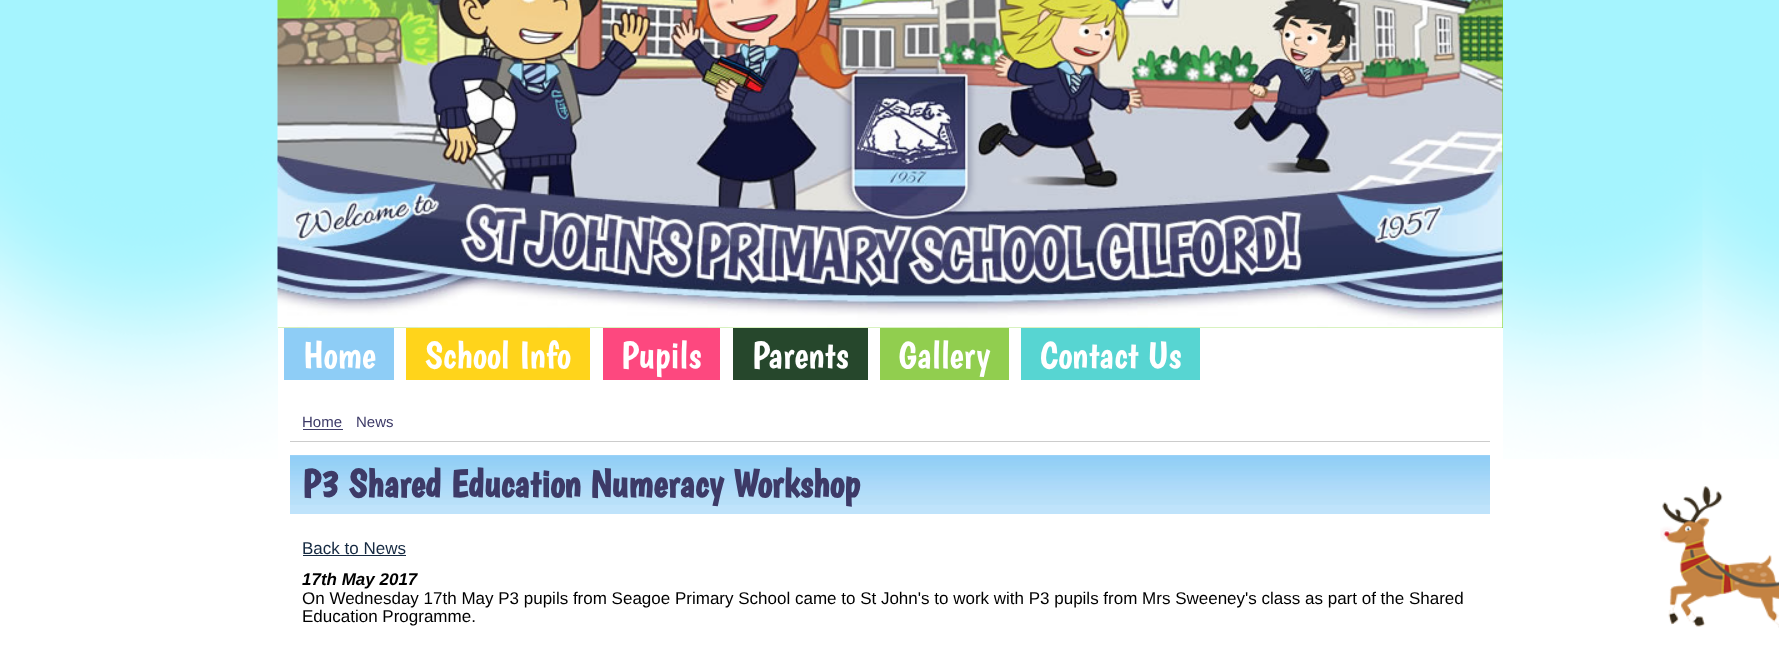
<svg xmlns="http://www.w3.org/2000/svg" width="1779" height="649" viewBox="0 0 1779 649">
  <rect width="100%" height="100%" fill="#ffffff"/>
  <image x="0" y="0" width="1779" height="459" href="img1.png"/>
  <rect x="278" y="0" width="1225" height="328" fill="#62cb00"/>
  <image x="277" y="0" width="1226" height="328" href="img2.png"/>
  <rect x="278" y="328" width="1225" height="131" fill="#ffffff"/>
  <rect x="284" y="328" width="110" height="52" fill="#8ecdf6"/>
  <text x="303" y="368" font-family="Boogaloo" font-size="38" fill="#ffffff">Home</text>
  <rect x="406" y="328" width="184" height="52" fill="#ffd41b"/>
  <text x="425" y="368" font-family="Boogaloo" font-size="38" fill="#ffffff">School Info</text>
  <rect x="603" y="328" width="117" height="52" fill="#fd487f"/>
  <text x="621" y="368" font-family="Boogaloo" font-size="38" fill="#ffffff">Pupils</text>
  <rect x="733" y="328" width="135" height="52" fill="#26472c"/>
  <text x="752" y="368" font-family="Boogaloo" font-size="38" fill="#ffffff">Parents</text>
  <rect x="880" y="328" width="129" height="52" fill="#91ce4f"/>
  <text x="898" y="368" font-family="Boogaloo" font-size="38" fill="#ffffff">Gallery</text>
  <rect x="1021" y="328" width="179" height="52" fill="#57d5d2"/>
  <text x="1040" y="368" font-family="Boogaloo" font-size="38" fill="#ffffff">Contact Us</text>
  <rect x="290" y="441" width="1200" height="1" fill="#cccccc"/>
  <text x="302" y="427" font-family="Liberation Sans" font-size="15" fill="#3d3a67">Home</text>
  <rect x="303" y="429" width="40" height="1" fill="#3d3a67"/>
  <text x="356" y="427" font-family="Liberation Sans" font-size="15" fill="#3d3a67">News</text>
  <rect x="290" y="455" width="1200" height="59" fill="#bfe3fb"/>
  <image x="290" y="455" width="1200" height="50" href="img3.png"/>
  <text x="302" y="497" font-family="Boogaloo" font-size="39.1" font-weight="bold" fill="#3d3a67">P3 Shared Education Numeracy Workshop</text>
  <text x="302" y="554" font-family="Liberation Sans" font-size="17" fill="#152941">Back to News</text>
  <rect x="303" y="555" width="103" height="1" fill="#152941"/>
  <text x="302" y="585" font-family="Liberation Sans" font-size="17" font-weight="bold" font-style="italic" fill="#000000">17th May 2017</text>
  <text x="302" y="604" font-family="Liberation Sans" font-size="17" fill="#000000">On Wednesday 17th May P3 pupils from Seagoe Primary School came to St John's to work with P3 pupils from Mrs Sweeney's class as part of the Shared</text>
  <text x="302" y="622" font-family="Liberation Sans" font-size="17" fill="#000000">Education Programme.</text>
  <image x="1660" y="486" width="119" height="142" href="img4.png"/>
</svg>
